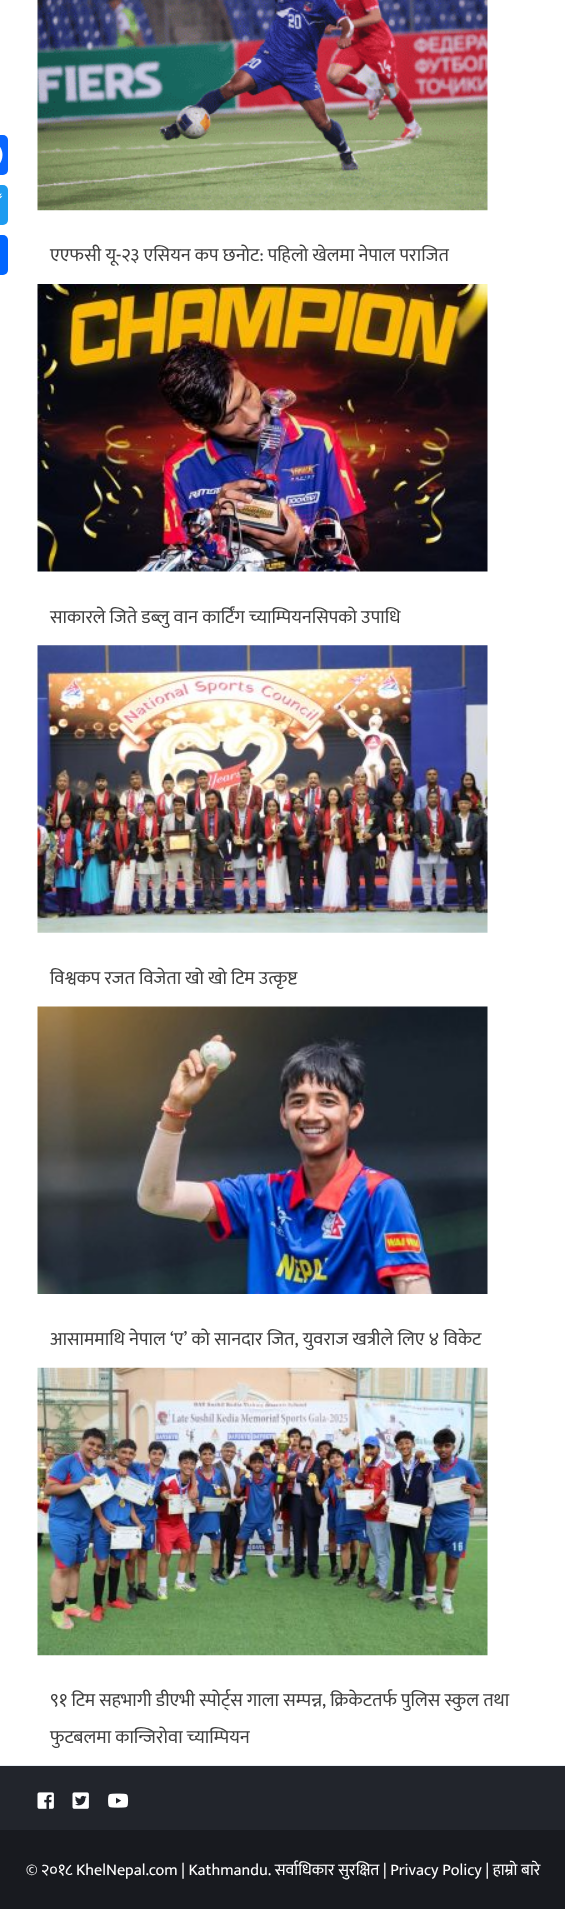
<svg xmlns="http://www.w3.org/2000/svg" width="565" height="1909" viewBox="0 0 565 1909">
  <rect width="100%" height="100%" fill="#ffffff"/>
  <rect x="-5" y="135" width="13" height="40" rx="5" fill="#0866ff"/>
  <image x="0" y="147" width="3" height="16" href="img1.png"/>
  <rect x="-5" y="185" width="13" height="40" rx="5" fill="#1d9bf0"/>
  <image x="0" y="193" width="3" height="6" href="img2.png"/>
  <rect x="-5" y="235" width="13" height="40" rx="5" fill="#0166ff"/>
  <image x="37" y="0" width="451" height="211" href="img3.png"/>
  <text x="50" y="261" font-family="Mukta" font-size="18.75" fill="#3f3f3f">एएफसी यू-२३ एसियन कप छनोट: पहिलो खेलमा नेपाल पराजित</text>
  <image x="37" y="284" width="451" height="288" href="img4.png"/>
  <text x="50" y="623" font-family="Mukta" font-size="18.75" fill="#3f3f3f">साकारले जिते डब्लु वान कार्टिंग च्याम्पियनसिपको उपाधि</text>
  <image x="37" y="645" width="451" height="288" href="img5.png"/>
  <text x="50" y="984" font-family="Mukta" font-size="18.75" fill="#3f3f3f">विश्वकप रजत विजेता खो खो टिम उत्कृष्ट</text>
  <image x="37" y="1006" width="451" height="288" href="img6.png"/>
  <text x="50" y="1345" font-family="Mukta" font-size="18.75" fill="#3f3f3f">आसाममाथि नेपाल ‘ए’ को सानदार जित, युवराज खत्रीले लिए ४ विकेट</text>
  <image x="37" y="1367" width="451" height="289" href="img7.png"/>
  <text x="50" y="1706" font-family="Mukta" font-size="18.75" fill="#3f3f3f">९१ टिम सहभागी डीएभी स्पोर्ट्स गाला सम्पन्न, क्रिकेटतर्फ पुलिस स्कुल तथा</text>
  <text x="50" y="1743" font-family="Mukta" font-size="18.75" fill="#3f3f3f">फुटबलमा कान्जिरोवा च्याम्पियन</text>
  <rect x="0" y="1766" width="565" height="64" fill="#22252c"/>
  <rect x="0" y="1765" width="565" height="1" fill="#e9eff5"/>
  <image x="37" y="1792" width="17" height="17" href="img8.png"/>
  <image x="72" y="1792" width="17" height="17" href="img9.png"/>
  <image x="108" y="1793" width="21" height="15" href="img10.png"/>
  <rect x="0" y="1830" width="565" height="79" fill="#181a1f"/>
  <text x="26" y="1875" font-family="Mukta" font-size="16.25" fill="#ffffff">© २०१८ KhelNepal.com | Kathmandu. सर्वाधिकार सुरक्षित | Privacy Policy | हाम्रो बारे</text>
</svg>
